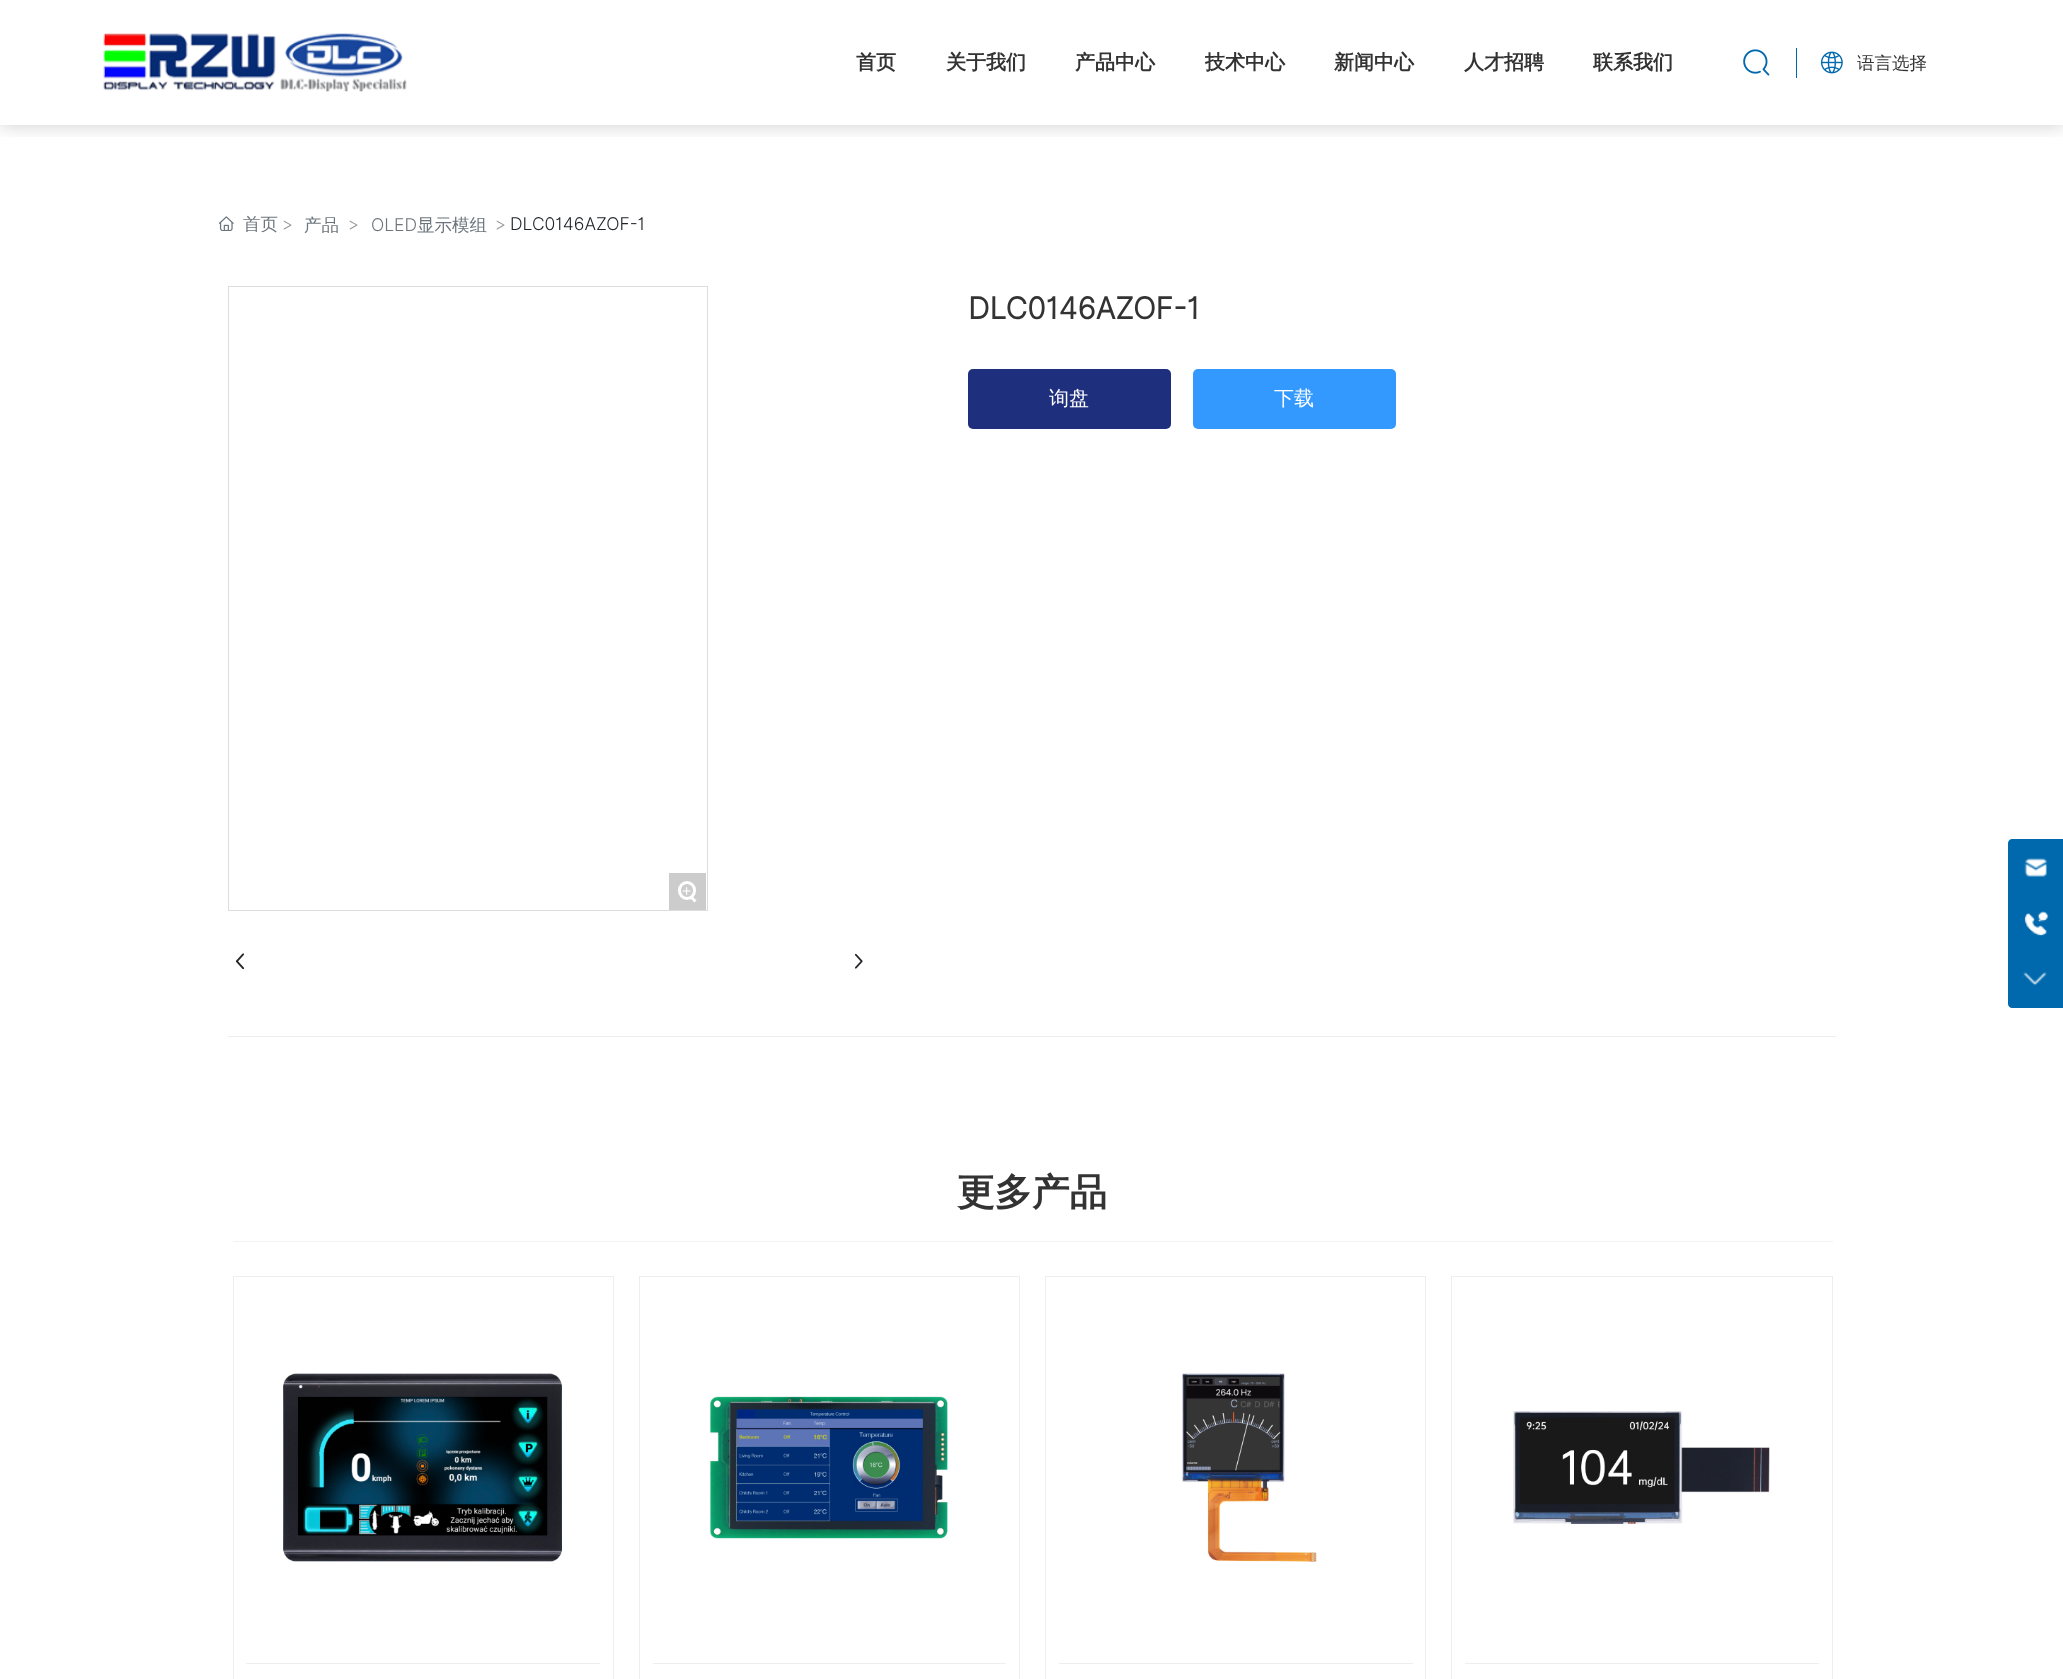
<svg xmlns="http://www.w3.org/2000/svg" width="2063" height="1679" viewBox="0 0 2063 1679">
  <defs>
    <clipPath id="clip1"><rect x="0" y="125" width="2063" height="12"/></clipPath>
    <filter id="blur1" x="-50%" y="-200%" width="200%" height="500%"><feGaussianBlur stdDeviation="9.5"/></filter>
  </defs>
  <rect width="100%" height="100%" fill="#ffffff"/>
  <g clip-path="url(#clip1)">
    <rect x="0" y="0" width="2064" height="125" fill="#000000" fill-opacity="0.2" filter="url(#blur1)"/>
  </g>
  <image x="103" y="33" width="304" height="59" href="img1.png"/>
  <text x="856" y="69" font-family="WenQuanYi Zen Hei" font-size="20" font-weight="bold" fill="#333333">首页</text>
  <text x="946" y="69" font-family="WenQuanYi Zen Hei" font-size="20" font-weight="bold" fill="#333333">关于我们</text>
  <text x="1075" y="69" font-family="WenQuanYi Zen Hei" font-size="20" font-weight="bold" fill="#333333">产品中心</text>
  <text x="1205" y="69" font-family="WenQuanYi Zen Hei" font-size="20" font-weight="bold" fill="#333333">技术中心</text>
  <text x="1334" y="69" font-family="WenQuanYi Zen Hei" font-size="20" font-weight="bold" fill="#333333">新闻中心</text>
  <text x="1464" y="69" font-family="WenQuanYi Zen Hei" font-size="20" font-weight="bold" fill="#333333">人才招聘</text>
  <text x="1593" y="69" font-family="WenQuanYi Zen Hei" font-size="20" font-weight="bold" fill="#333333">联系我们</text>
  <rect x="1796" y="48" width="1" height="30" fill="#0068ad"/>
  <image x="1743" y="49" width="27" height="27" href="img2.png"/>
  <image x="1820" y="51" width="23" height="23" href="img3.png"/>
  <text x="1857" y="69" font-family="WenQuanYi Zen Hei" font-size="17.5" font-weight="500" fill="#333333">语言选择</text>
  <image x="219" y="216" width="15" height="15" href="img4.png"/>
  <text x="243" y="230" font-family="WenQuanYi Zen Hei" font-size="17.5" font-weight="500" fill="#6c757d">首页</text>
  <text x="282" y="230" font-family="Inter" font-size="17.5" font-weight="300" fill="#999999">&gt;</text>
  <text x="304" y="231" font-family="WenQuanYi Zen Hei" font-size="17.5" font-weight="500" fill="#6c757d">产品</text>
  <text x="348" y="230" font-family="Inter" font-size="17.5" font-weight="300" fill="#999999">&gt;</text>
  <text x="371" y="231" font-family="Inter" font-size="17.5" font-weight="300" fill="#6c757d">OLED</text>
  <text x="417" y="231" font-family="WenQuanYi Zen Hei" font-size="17.5" font-weight="500" fill="#6c757d">显示模组</text>
  <text x="495" y="230" font-family="Inter" font-size="17.5" font-weight="300" fill="#999999">&gt;</text>
  <text x="510" y="230" font-family="Inter" font-size="17.5" font-weight="300" fill="#212529">DLC0146AZOF-1</text>
  <rect x="228" y="1036" width="1608" height="1" fill="#eeeeee"/>
  <text x="968" y="319" font-family="Inter" font-size="30" font-weight="bold" fill="#333333">DLC0146AZOF-1</text>
  <rect x="968" y="369" width="203" height="60" rx="5" fill="#1e2f7d"/>
  <text x="1049" y="405" font-family="WenQuanYi Zen Hei" font-size="20" font-weight="500" fill="#ffffff">询盘</text>
  <rect x="1193" y="369" width="203" height="60" rx="5" fill="#3399ff"/>
  <text x="1274" y="405" font-family="WenQuanYi Zen Hei" font-size="20" font-weight="500" fill="#ffffff">下载</text>
  <rect x="228.5" y="286.5" width="479" height="624" fill="none" stroke="#dddddd"/>
  <rect x="669" y="873" width="37" height="37" fill="#cccccc"/>
  <rect x="679.5" y="882.5" width="15" height="16" rx="7.5" fill="none" stroke="#ffffff" stroke-width="3"/>
  <text x="681" y="896" font-family="Inter" font-size="17.5" font-weight="300" fill="#ffffff">+</text>
  <path d="M692 896L696.5 900.5L694.5 902.5L690 898Z" fill="#ffffff"/>
  <image x="235" y="953" width="10" height="17" href="img5.png"/>
  <image x="854" y="953" width="9" height="16" href="img6.png"/>
  <path d="M2012 839H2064V1008H2012C2010 1008 2008 1006 2008 1004V843C2008 841 2010 839 2012 839Z" fill="#0068ad"/>
  <image x="2024" y="858" width="24" height="19" href="img7.png"/>
  <image x="2024" y="911" width="25" height="25" href="img8.png"/>
  <image x="2023" y="972" width="24" height="14" href="img9.png"/>
  <text x="957" y="1205" font-family="WenQuanYi Zen Hei" font-size="37.5" font-weight="bold" fill="#333333">更多产品</text>
  <rect x="233" y="1241" width="1600" height="1" fill="#f2f2f2"/>
  <rect x="233.5" y="1276.5" width="380" height="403" fill="none" stroke="#eeeeee"/>
  <image x="283" y="1373" width="279" height="189" href="img10.png"/>
  <rect x="246" y="1663" width="354" height="1" fill="#eeeeee"/>
  <rect x="639.5" y="1276.5" width="380" height="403" fill="none" stroke="#eeeeee"/>
  <image x="710" y="1396" width="238" height="143" href="img11.png"/>
  <rect x="653" y="1663" width="353" height="1" fill="#eeeeee"/>
  <rect x="1045.5" y="1276.5" width="380" height="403" fill="none" stroke="#eeeeee"/>
  <image x="1182" y="1373" width="135" height="189" href="img12.png"/>
  <rect x="1059" y="1663" width="354" height="1" fill="#eeeeee"/>
  <rect x="1451.5" y="1276.5" width="381" height="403" fill="none" stroke="#eeeeee"/>
  <image x="1513" y="1411" width="257" height="113" href="img13.png"/>
  <rect x="1465" y="1663" width="354" height="1" fill="#eeeeee"/>
</svg>
